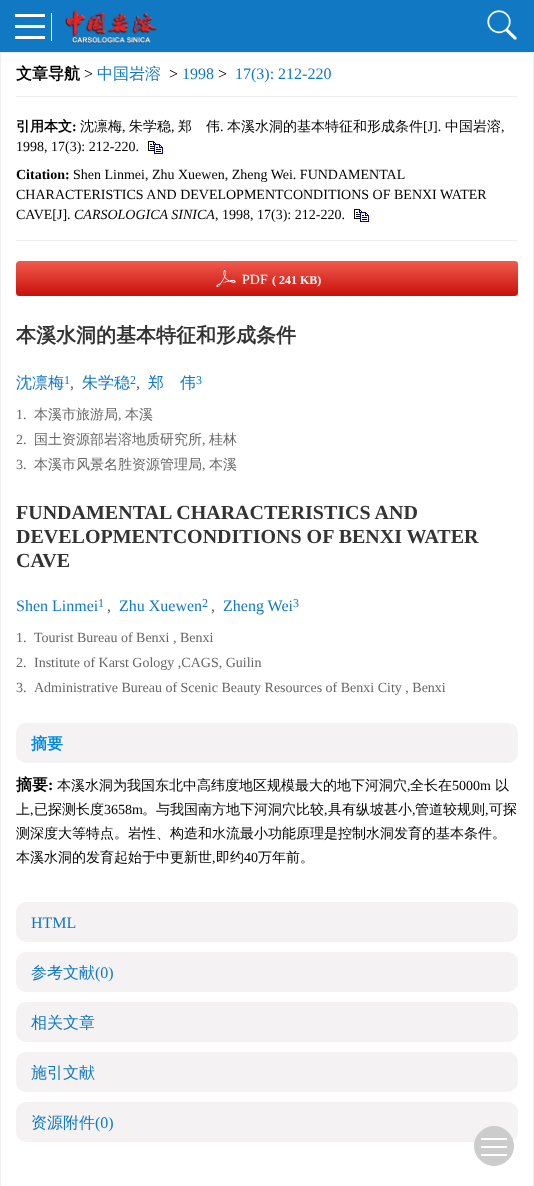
<svg xmlns="http://www.w3.org/2000/svg" width="534" height="1186" viewBox="0 0 534 1186">
  <defs>
    <clipPath id="clip1"><rect x="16" y="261" width="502" height="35"/></clipPath>
    <filter id="blur1" x="-50%" y="-200%" width="200%" height="500%"><feGaussianBlur stdDeviation="0.5"/></filter>
    <linearGradient id="g1" gradientUnits="userSpaceOnUse" x1="267" y1="261" x2="267" y2="296"><stop offset="0" stop-color="#f15a4d"/><stop offset="1" stop-color="#c8100b"/></linearGradient>
  </defs>
  <rect width="100%" height="100%" fill="#ffffff"/>
  <rect x="0" y="0" width="534" height="52" fill="#1178c3"/>
  <rect x="15" y="14" width="30" height="3" fill="#ffffff"/>
  <rect x="15" y="25" width="30" height="3" fill="#ffffff"/>
  <rect x="15" y="36" width="30" height="3" fill="#ffffff"/>
  <rect x="51" y="13" width="1" height="28" fill="#ffffff"/>
  <image x="65" y="10" width="92" height="34" href="img1.png"/>
  <image x="487" y="10" width="30" height="30" href="img2.png"/>
  <rect x="0.5" y="52.5" width="533" height="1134" fill="none" stroke="#eeeeee"/>
  <rect x="16" y="96" width="502" height="1" fill="#eeeeee"/>
  <text x="16" y="79" font-family="WenQuanYi Zen Hei" font-size="16" font-weight="bold" fill="#000000">文章导航</text>
  <text x="84" y="79" font-family="Liberation Serif" font-size="16" fill="#000000">&gt;</text>
  <text x="97" y="79" font-family="WenQuanYi Zen Hei" font-size="16" font-weight="500" fill="#1178c3">中国岩溶</text>
  <text x="169" y="79" font-family="Liberation Serif" font-size="16" fill="#000000">&gt;</text>
  <text x="182" y="79" font-family="Liberation Serif" font-size="16" fill="#1178c3">1998</text>
  <text x="218" y="79" font-family="Liberation Serif" font-size="16" fill="#000000">&gt;</text>
  <text x="235" y="79" font-family="Liberation Serif" font-size="16" fill="#1178c3">17(3): 212-220</text>
  <rect x="16" y="240" width="502" height="1" fill="#eeeeee"/>
  <text x="16" y="131" font-family="WenQuanYi Zen Hei" font-size="14" font-weight="bold" fill="#000000">引用本文</text>
  <text x="80" y="131" font-family="WenQuanYi Zen Hei" font-size="14" font-weight="500" fill="#000000">沈凛梅</text>
  <text x="122" y="131" font-family="Liberation Serif" font-size="14" fill="#000000">,</text>
  <text x="129" y="131" font-family="WenQuanYi Zen Hei" font-size="14" font-weight="500" fill="#000000">朱学稳</text>
  <text x="171" y="131" font-family="Liberation Serif" font-size="14" fill="#000000">,</text>
  <text x="178" y="131" font-family="WenQuanYi Zen Hei" font-size="14" font-weight="500" fill="#000000">郑　伟</text>
  <text x="220" y="131" font-family="Liberation Serif" font-size="14" fill="#000000">.</text>
  <text x="227" y="131" font-family="WenQuanYi Zen Hei" font-size="14" font-weight="500" fill="#000000">本溪水洞的基本特征和形成条件</text>
  <text x="423" y="131" font-family="Liberation Serif" font-size="14" fill="#000000">[J].</text>
  <text x="445" y="131" font-family="WenQuanYi Zen Hei" font-size="14" font-weight="500" fill="#000000">中国岩溶</text>
  <text x="501" y="131" font-family="Liberation Serif" font-size="14" fill="#000000">,</text>
  <text x="16" y="151" font-family="Liberation Serif" font-size="14" fill="#000000">1998, 17(3): 212-220.</text>
  <image x="148" y="141" width="15" height="13" href="img3.png"/>
  <text x="72" y="131" font-family="Liberation Serif" font-size="14" font-weight="bold" fill="#000000">:</text>
  <text x="16" y="179" font-family="Liberation Serif" font-size="14" font-weight="bold" fill="#000000">Citation:</text>
  <text x="73" y="179" font-family="Liberation Serif" font-size="14" fill="#000000">Shen Linmei, Zhu Xuewen, Zheng Wei. FUNDAMENTAL</text>
  <text x="16" y="199" font-family="Liberation Serif" font-size="14" fill="#000000">CHARACTERISTICS AND DEVELOPMENTCONDITIONS OF BENXI WATER</text>
  <text x="16" y="219" font-family="Liberation Serif" font-size="14" fill="#000000">CAVE[J].</text>
  <text x="74" y="219" font-family="Liberation Serif" font-size="14" font-style="italic" fill="#000000">CARSOLOGICA SINICA</text>
  <text x="215" y="219" font-family="Liberation Serif" font-size="14" fill="#000000">, 1998, 17(3): 212-220.</text>
  <image x="354" y="209" width="15" height="13" href="img3.png"/>
  <g clip-path="url(#clip1)">
    <rect x="16" y="261" width="504" height="37" rx="5" fill="#000000" fill-opacity="0.2" filter="url(#blur1)"/>
  </g>
  <rect x="16" y="261" width="502" height="35" rx="4" fill="url(#g1)"/>
  <image x="216" y="270" width="20" height="17" href="img4.png"/>
  <text x="242" y="284" font-family="Liberation Serif" font-size="14" fill="#ffffff">PDF</text>
  <text x="272" y="284" font-family="Liberation Serif" font-size="12" font-weight="bold" fill="#ffffff">( 241 KB)</text>
  <text x="16" y="342" font-family="WenQuanYi Zen Hei" font-size="20" font-weight="bold" fill="#333333">本溪水洞的基本特征和形成条件</text>
  <text x="16" y="388" font-family="WenQuanYi Zen Hei" font-size="16" font-weight="500" fill="#1178c3">沈凛梅</text>
  <text x="64" y="384" font-family="Liberation Serif" font-size="12" fill="#1178c3">1</text>
  <text x="70" y="388" font-family="Liberation Serif" font-size="16" fill="#666666">,</text>
  <text x="82" y="388" font-family="WenQuanYi Zen Hei" font-size="16" font-weight="500" fill="#1178c3">朱学稳</text>
  <text x="130" y="384" font-family="Liberation Serif" font-size="12" fill="#1178c3">2</text>
  <text x="136" y="388" font-family="Liberation Serif" font-size="16" fill="#666666">,</text>
  <text x="148" y="388" font-family="WenQuanYi Zen Hei" font-size="16" font-weight="500" fill="#1178c3">郑　伟</text>
  <text x="196" y="384" font-family="Liberation Serif" font-size="12" fill="#1178c3">3</text>
  <text x="16" y="419" font-family="Liberation Serif" font-size="14" fill="#666666">1.</text>
  <text x="34" y="419" font-family="WenQuanYi Zen Hei" font-size="14" font-weight="500" fill="#666666">本溪市旅游局</text>
  <text x="118" y="419" font-family="Liberation Serif" font-size="14" fill="#666666">,</text>
  <text x="125" y="419" font-family="WenQuanYi Zen Hei" font-size="14" font-weight="500" fill="#666666">本溪</text>
  <text x="16" y="444" font-family="Liberation Serif" font-size="14" fill="#666666">2.</text>
  <text x="34" y="444" font-family="WenQuanYi Zen Hei" font-size="14" font-weight="500" fill="#666666">国土资源部岩溶地质研究所</text>
  <text x="202" y="444" font-family="Liberation Serif" font-size="14" fill="#666666">,</text>
  <text x="209" y="444" font-family="WenQuanYi Zen Hei" font-size="14" font-weight="500" fill="#666666">桂林</text>
  <text x="16" y="469" font-family="Liberation Serif" font-size="14" fill="#666666">3.</text>
  <text x="34" y="469" font-family="WenQuanYi Zen Hei" font-size="14" font-weight="500" fill="#666666">本溪市风景名胜资源管理局</text>
  <text x="202" y="469" font-family="Liberation Serif" font-size="14" fill="#666666">,</text>
  <text x="209" y="469" font-family="WenQuanYi Zen Hei" font-size="14" font-weight="500" fill="#666666">本溪</text>
  <text x="16" y="519" font-family="Liberation Serif" font-size="20" font-weight="bold" fill="#333333">FUNDAMENTAL CHARACTERISTICS AND</text>
  <text x="16" y="543" font-family="Liberation Serif" font-size="20" font-weight="bold" fill="#333333">DEVELOPMENTCONDITIONS OF BENXI WATER</text>
  <text x="16" y="567" font-family="Liberation Serif" font-size="20" font-weight="bold" fill="#333333">CAVE</text>
  <text x="16" y="611" font-family="Liberation Serif" font-size="16" fill="#1178c3">Shen Linmei</text>
  <text x="98" y="607" font-family="Liberation Serif" font-size="12" fill="#1178c3">1</text>
  <text x="107" y="611" font-family="Liberation Serif" font-size="16" fill="#666666">,</text>
  <text x="119" y="611" font-family="Liberation Serif" font-size="16" fill="#1178c3">Zhu Xuewen</text>
  <text x="202" y="607" font-family="Liberation Serif" font-size="12" fill="#1178c3">2</text>
  <text x="211" y="611" font-family="Liberation Serif" font-size="16" fill="#666666">,</text>
  <text x="223" y="611" font-family="Liberation Serif" font-size="16" fill="#1178c3">Zheng Wei</text>
  <text x="293" y="607" font-family="Liberation Serif" font-size="12" fill="#1178c3">3</text>
  <text x="16" y="642" font-family="Liberation Serif" font-size="14" fill="#666666">1.</text>
  <text x="34" y="642" font-family="Liberation Serif" font-size="14" fill="#666666">Tourist Bureau of Benxi , Benxi</text>
  <text x="16" y="667" font-family="Liberation Serif" font-size="14" fill="#666666">2.</text>
  <text x="34" y="667" font-family="Liberation Serif" font-size="14" fill="#666666">Institute of Karst Gology ,CAGS, Guilin</text>
  <text x="16" y="692" font-family="Liberation Serif" font-size="14" fill="#666666">3.</text>
  <text x="34" y="692" font-family="Liberation Serif" font-size="14" fill="#666666">Administrative Bureau of Scenic Beauty Resources of Benxi City , Benxi</text>
  <rect x="16" y="723" width="502" height="40" rx="10" fill="#f4f2f2"/>
  <text x="31" y="749" font-family="WenQuanYi Zen Hei" font-size="16" font-weight="bold" fill="#0089e3">摘要</text>
  <text x="16" y="790" font-family="WenQuanYi Zen Hei" font-size="16" font-weight="bold" fill="#000000">摘要</text>
  <text x="48" y="790" font-family="Liberation Serif" font-size="16" font-weight="bold" fill="#000000">:</text>
  <text x="57" y="790" font-family="WenQuanYi Zen Hei" font-size="14" font-weight="500" fill="#000000">本溪水洞为我国东北中高纬度地区规模最大的地下河洞穴</text>
  <text x="407" y="790" font-family="Liberation Serif" font-size="14" fill="#000000">,</text>
  <text x="410" y="790" font-family="WenQuanYi Zen Hei" font-size="14" font-weight="500" fill="#000000">全长在</text>
  <text x="452" y="790" font-family="Liberation Serif" font-size="14" fill="#000000">5000m</text>
  <text x="495" y="790" font-family="WenQuanYi Zen Hei" font-size="14" font-weight="500" fill="#000000">以</text>
  <text x="16" y="814" font-family="WenQuanYi Zen Hei" font-size="14" font-weight="500" fill="#000000">上</text>
  <text x="30" y="814" font-family="Liberation Serif" font-size="14" fill="#000000">,</text>
  <text x="34" y="814" font-family="WenQuanYi Zen Hei" font-size="14" font-weight="500" fill="#000000">已探测长度</text>
  <text x="104" y="814" font-family="Liberation Serif" font-size="14" fill="#000000">3658m</text>
  <text x="142" y="814" font-family="WenQuanYi Zen Hei" font-size="14" font-weight="500" fill="#000000">。与我国南方地下河洞穴比较</text>
  <text x="324" y="814" font-family="Liberation Serif" font-size="14" fill="#000000">,</text>
  <text x="328" y="814" font-family="WenQuanYi Zen Hei" font-size="14" font-weight="500" fill="#000000">具有纵坡甚小</text>
  <text x="412" y="814" font-family="Liberation Serif" font-size="14" fill="#000000">,</text>
  <text x="415" y="814" font-family="WenQuanYi Zen Hei" font-size="14" font-weight="500" fill="#000000">管道较规则</text>
  <text x="485" y="814" font-family="Liberation Serif" font-size="14" fill="#000000">,</text>
  <text x="489" y="814" font-family="WenQuanYi Zen Hei" font-size="14" font-weight="500" fill="#000000">可探</text>
  <text x="16" y="838" font-family="WenQuanYi Zen Hei" font-size="14" font-weight="500" fill="#000000">测深度大等特点。岩性、构造和水流最小功能原理是控制水洞发育的基本条件。</text>
  <text x="16" y="862" font-family="WenQuanYi Zen Hei" font-size="14" font-weight="500" fill="#000000">本溪水洞的发育起始于中更新世</text>
  <text x="212" y="862" font-family="Liberation Serif" font-size="14" fill="#000000">,</text>
  <text x="216" y="862" font-family="WenQuanYi Zen Hei" font-size="14" font-weight="500" fill="#000000">即约</text>
  <text x="244" y="862" font-family="Liberation Serif" font-size="14" fill="#000000">40</text>
  <text x="258" y="862" font-family="WenQuanYi Zen Hei" font-size="14" font-weight="500" fill="#000000">万年前。</text>
  <rect x="16" y="902" width="502" height="40" rx="10" fill="#f4f2f2"/>
  <text x="31" y="928" font-family="Liberation Serif" font-size="16" fill="#1178c3">HTML</text>
  <rect x="16" y="952" width="502" height="40" rx="10" fill="#f4f2f2"/>
  <text x="31" y="978" font-family="WenQuanYi Zen Hei" font-size="16" font-weight="500" fill="#1178c3">参考文献</text>
  <text x="95" y="978" font-family="Liberation Serif" font-size="16" fill="#1178c3">(0)</text>
  <rect x="16" y="1002" width="502" height="40" rx="10" fill="#f4f2f2"/>
  <text x="31" y="1028" font-family="WenQuanYi Zen Hei" font-size="16" font-weight="500" fill="#1178c3">相关文章</text>
  <rect x="16" y="1052" width="502" height="40" rx="10" fill="#f4f2f2"/>
  <text x="31" y="1078" font-family="WenQuanYi Zen Hei" font-size="16" font-weight="500" fill="#1178c3">施引文献</text>
  <rect x="16" y="1102" width="502" height="40" rx="10" fill="#f4f2f2"/>
  <text x="31" y="1128" font-family="WenQuanYi Zen Hei" font-size="16" font-weight="500" fill="#1178c3">资源附件</text>
  <text x="95" y="1128" font-family="Liberation Serif" font-size="16" fill="#1178c3">(0)</text>
  <circle cx="494" cy="1146" r="19.5" fill="#cccccc" stroke="#cccccc"/>
  <rect x="481" y="1138" width="26" height="2" fill="#ffffff"/>
  <rect x="481" y="1146" width="26" height="2" fill="#ffffff"/>
  <rect x="481" y="1154" width="26" height="2" fill="#ffffff"/>
</svg>
